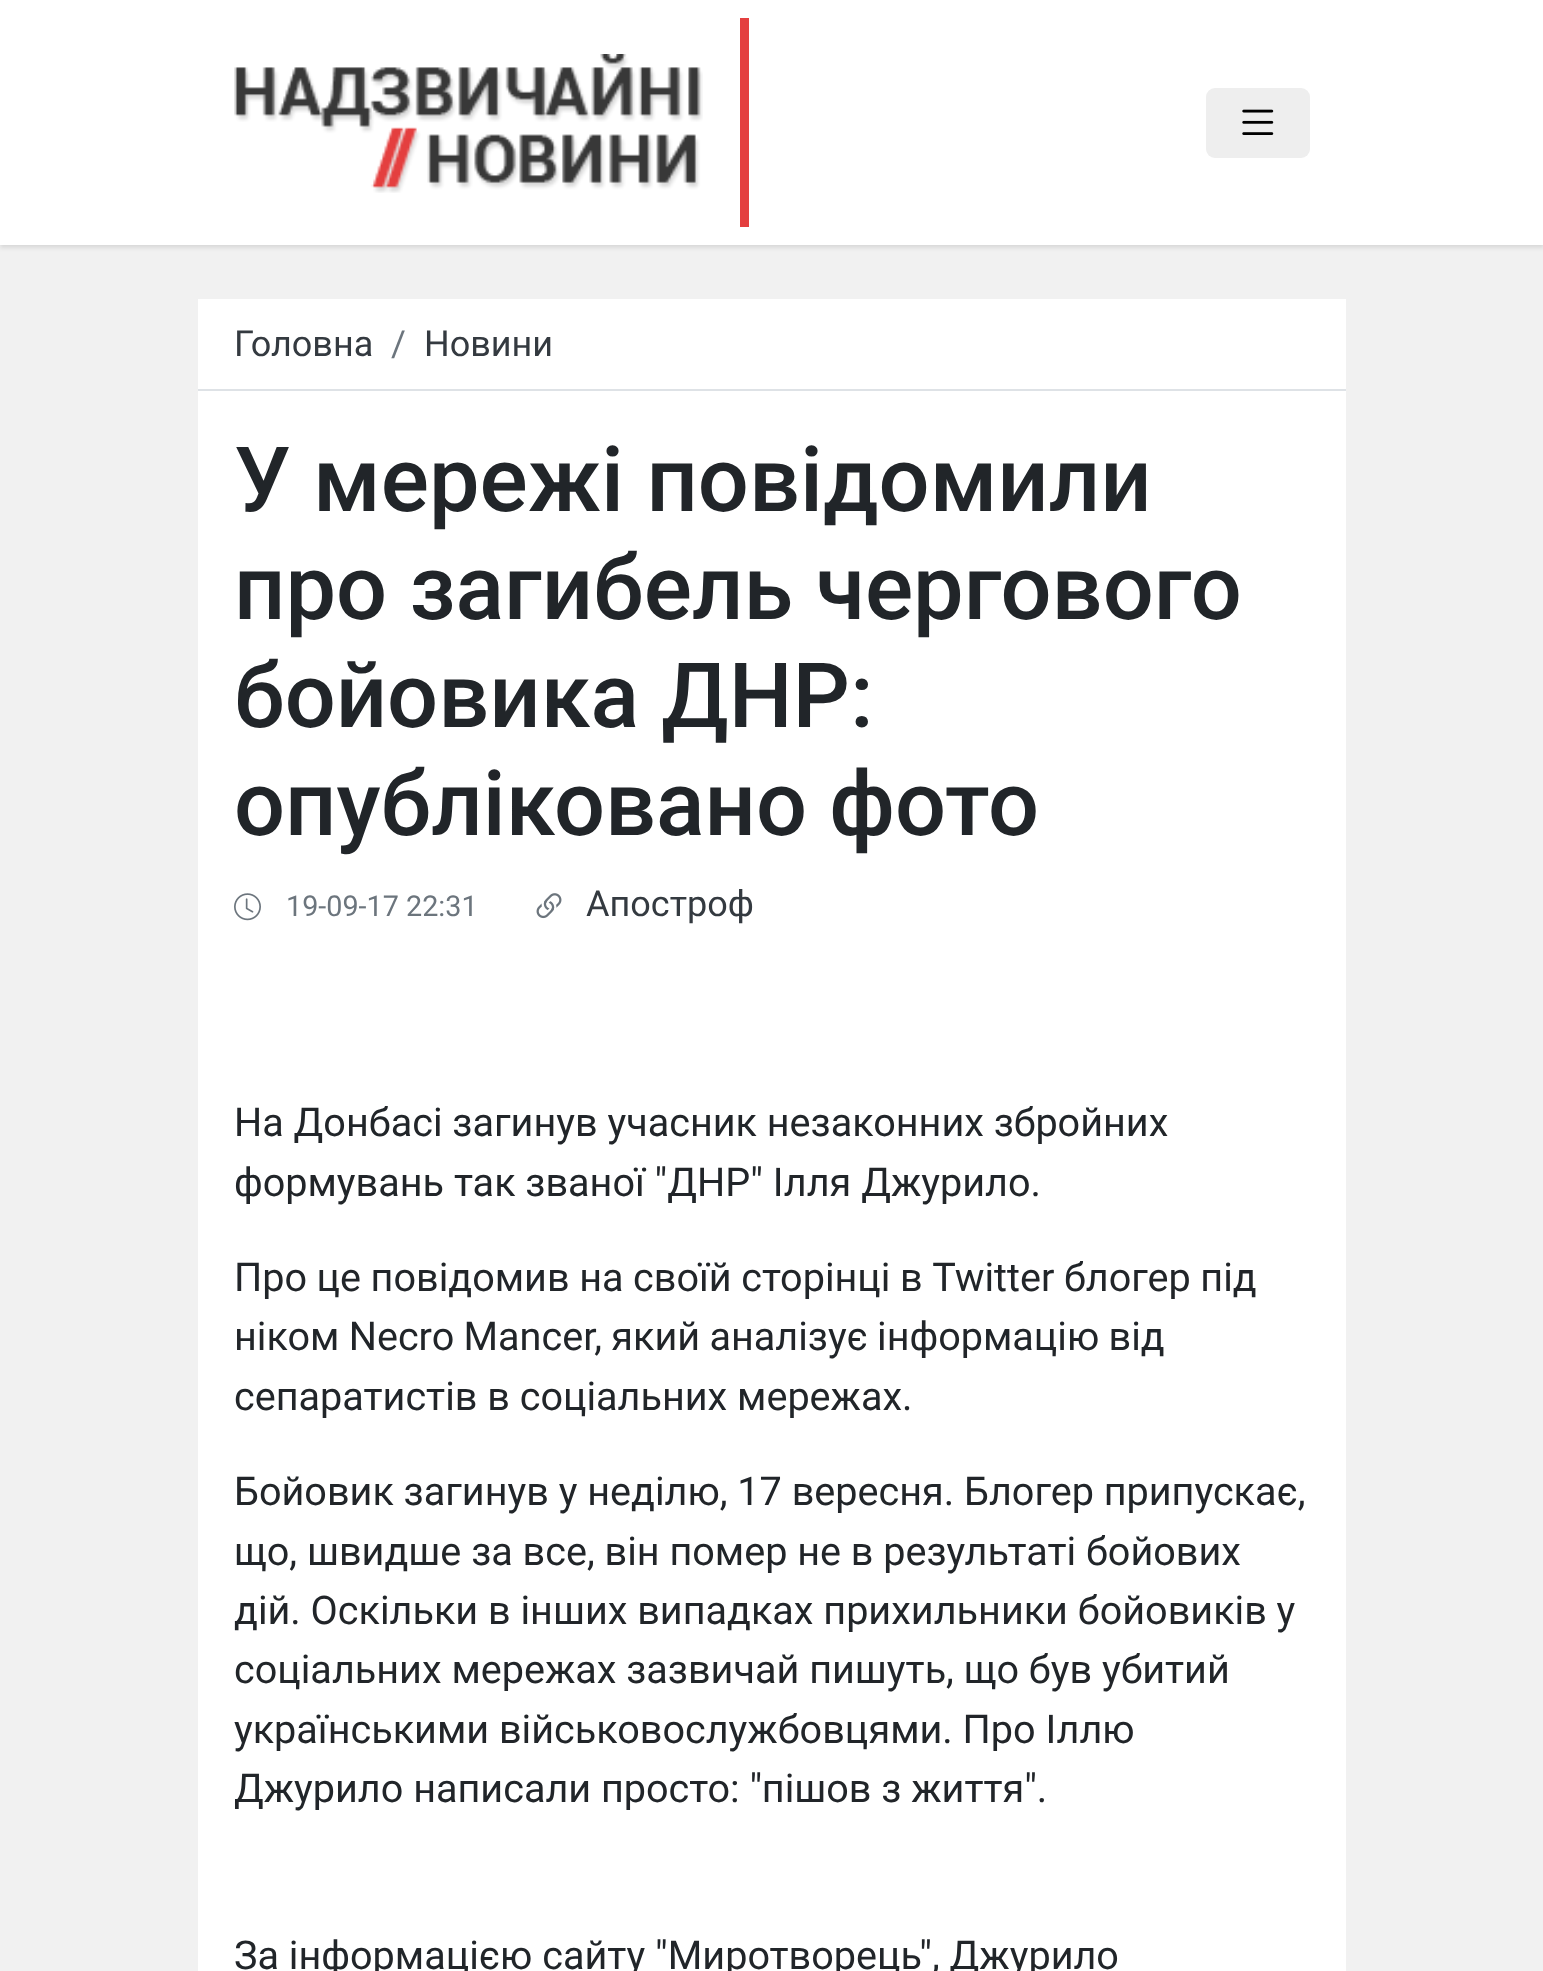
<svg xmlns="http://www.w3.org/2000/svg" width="1543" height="1971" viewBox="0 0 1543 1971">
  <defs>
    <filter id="blur1" x="-50%" y="-200%" width="200%" height="500%"><feGaussianBlur stdDeviation="2"/></filter>
  </defs>
  <rect width="100%" height="100%" fill="#f1f1f1"/>
  <rect x="0" y="2" width="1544" height="246" fill="#000000" fill-opacity="0.1" filter="url(#blur1)"/>
  <rect x="0" y="0" width="1543" height="245" fill="#ffffff"/>
  <rect x="740" y="18" width="9" height="209" fill="#e43f3f"/>
  <image x="234" y="54" width="469" height="139" href="img1.png"/>
  <rect x="1206" y="88" width="104" height="70" rx="9" fill="#eeeeee"/>
  <image x="1242" y="109" width="32" height="26" href="img2.png"/>
  <rect x="198" y="299" width="1148" height="1672" fill="#ffffff"/>
  <rect x="198" y="389" width="1148" height="2" fill="#dee2e6"/>
  <text x="234" y="356" font-family="Roboto" font-size="36" fill="#343a40">Головна</text>
  <text x="391" y="356" font-family="Roboto" font-size="36" fill="#6c757d">/</text>
  <text x="424" y="356" font-family="Roboto" font-size="36" fill="#343a40">Новини</text>
  <text x="234" y="511" font-family="Roboto" font-size="90" font-weight="500" fill="#212529">У мережі повідомили</text>
  <text x="234" y="619" font-family="Roboto" font-size="90" font-weight="500" fill="#212529">про загибель чергового</text>
  <text x="234" y="727" font-family="Roboto" font-size="90" font-weight="500" fill="#212529">бойовика ДНР:</text>
  <text x="234" y="835" font-family="Roboto" font-size="90" font-weight="500" fill="#212529">опубліковано фото</text>
  <image x="234" y="893" width="27" height="28" href="img3.png"/>
  <text x="286" y="916" font-family="Roboto" font-size="28.75" fill="#6c757d">19-09-17 22:31</text>
  <image x="536" y="893" width="26" height="26" href="img4.png"/>
  <text x="586" y="916" font-family="Roboto" font-size="36" fill="#343a40">Апостроф</text>
  <text x="234" y="1136" font-family="Roboto" font-size="39.6" fill="#212529">На Донбасі загинув учасник незаконних збройних</text>
  <text x="234" y="1196" font-family="Roboto" font-size="39.6" fill="#212529">формувань так званої "ДНР" Ілля Джурило.</text>
  <text x="234" y="1291" word-spacing="-0.25" font-family="Roboto" font-size="39.6" fill="#212529">Про це повідомив на своїй сторінці в Twitter блогер під</text>
  <text x="234" y="1350" word-spacing="-0.5" font-family="Roboto" font-size="39.6" fill="#212529">ніком Necro Mancer, який аналізує інформацію від</text>
  <text x="234" y="1410" font-family="Roboto" font-size="39.6" fill="#212529">сепаратистів в соціальних мережах.</text>
  <text x="234" y="1505" font-family="Roboto" font-size="39.6" fill="#212529">Бойовик загинув у неділю, 17 вересня. Блогер припускає,</text>
  <text x="234" y="1565" font-family="Roboto" font-size="39.6" fill="#212529">що, швидше за все, він помер не в результаті бойових</text>
  <text x="234" y="1624" font-family="Roboto" font-size="39.6" fill="#212529">дій. Оскільки в інших випадках прихильники бойовиків у</text>
  <text x="234" y="1683" font-family="Roboto" font-size="39.6" fill="#212529">соціальних мережах зазвичай пишуть, що був убитий</text>
  <text x="234" y="1743" font-family="Roboto" font-size="39.6" fill="#212529">українськими військовослужбовцями. Про Іллю</text>
  <text x="234" y="1802" font-family="Roboto" font-size="39.6" fill="#212529">Джурило написали просто: "пішов з життя".</text>
  <text x="234" y="1969" font-family="Roboto" font-size="39.6" fill="#212529">За інформацією сайту "Миротворець", Джурило</text>
</svg>
